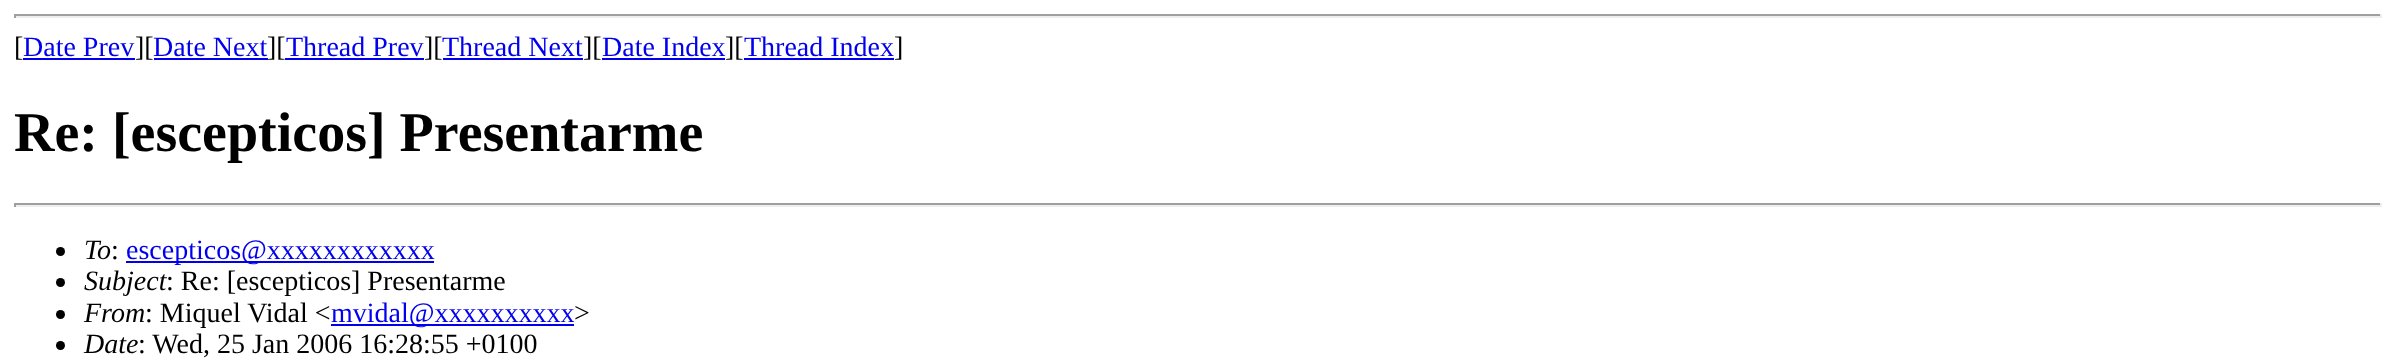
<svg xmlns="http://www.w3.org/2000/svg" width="2395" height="364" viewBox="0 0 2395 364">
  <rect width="100%" height="100%" fill="#ffffff"/>
  <rect x="14" y="14" width="2368" height="2" fill="#9f9f9f"/>
  <rect x="2380" y="14" width="2" height="4" fill="#eeeeee"/>
  <rect x="14" y="16" width="2368" height="2" fill="#eeeeee"/>
  <rect x="14" y="14" width="2" height="4" fill="#9f9f9f"/>
  <text x="14" y="56" font-family="Liberation Serif" font-size="28" fill="#000000">[</text>
  <text x="23" y="56" font-family="Liberation Serif" font-size="28" fill="#0000ee">Date Prev</text>
  <rect x="23" y="58" width="112" height="2" fill="#0000ee"/>
  <text x="135" y="56" font-family="Liberation Serif" font-size="28" fill="#000000">][</text>
  <text x="153" y="56" font-family="Liberation Serif" font-size="28" fill="#0000ee">Date Next</text>
  <rect x="154" y="58" width="114" height="2" fill="#0000ee"/>
  <text x="267" y="56" font-family="Liberation Serif" font-size="28" fill="#000000">][</text>
  <text x="286" y="56" font-family="Liberation Serif" font-size="28" fill="#0000ee">Thread Prev</text>
  <rect x="285" y="58" width="139" height="2" fill="#0000ee"/>
  <text x="424" y="56" font-family="Liberation Serif" font-size="28" fill="#000000">][</text>
  <text x="442" y="56" font-family="Liberation Serif" font-size="28" fill="#0000ee">Thread Next</text>
  <rect x="443" y="58" width="140" height="2" fill="#0000ee"/>
  <text x="583" y="56" font-family="Liberation Serif" font-size="28" fill="#000000">][</text>
  <text x="602" y="56" font-family="Liberation Serif" font-size="28" fill="#0000ee">Date Index</text>
  <rect x="602" y="58" width="123" height="2" fill="#0000ee"/>
  <text x="725" y="56" font-family="Liberation Serif" font-size="28" fill="#000000">][</text>
  <text x="744" y="56" font-family="Liberation Serif" font-size="28" fill="#0000ee">Thread Index</text>
  <rect x="744" y="58" width="150" height="2" fill="#0000ee"/>
  <text x="894" y="56" font-family="Liberation Serif" font-size="28" fill="#000000">]</text>
  <text x="14" y="151" font-family="Liberation Serif" font-size="56" font-weight="bold" fill="#000000">Re: [escepticos] Presentarme</text>
  <rect x="14" y="203" width="2368" height="2" fill="#9f9f9f"/>
  <rect x="2380" y="203" width="2" height="4" fill="#eeeeee"/>
  <rect x="14" y="205" width="2368" height="2" fill="#eeeeee"/>
  <rect x="14" y="203" width="2" height="4" fill="#9f9f9f"/>
  <circle cx="60.5" cy="251.5" r="4.5" fill="#000000"/>
  <text x="84" y="259" font-family="Liberation Serif" font-size="28" font-style="italic" fill="#000000">To</text>
  <text x="111" y="259" font-family="Liberation Serif" font-size="28" fill="#000000">:</text>
  <rect x="126" y="261" width="308" height="2" fill="#0000ee"/>
  <text x="126" y="259" font-family="Liberation Serif" font-size="28" fill="#0000ee">escepticos@xxxxxxxxxxxx</text>
  <circle cx="60.5" cy="282.5" r="4.5" fill="#000000"/>
  <text x="84" y="290" font-family="Liberation Serif" font-size="28" font-style="italic" fill="#000000">Subject</text>
  <text x="166" y="290" font-family="Liberation Serif" font-size="28" fill="#000000">: Re: [escepticos] Presentarme</text>
  <circle cx="60.5" cy="314.5" r="4.5" fill="#000000"/>
  <text x="84" y="322" font-family="Liberation Serif" font-size="28" font-style="italic" fill="#000000">From</text>
  <text x="145" y="322" font-family="Liberation Serif" font-size="28" fill="#000000">: Miquel Vidal &lt;</text>
  <rect x="331" y="324" width="243" height="2" fill="#0000ee"/>
  <text x="331" y="322" font-family="Liberation Serif" font-size="28" fill="#0000ee">mvidal@xxxxxxxxxx</text>
  <text x="574" y="322" font-family="Liberation Serif" font-size="28" fill="#000000">&gt;</text>
  <circle cx="60.5" cy="345.5" r="4.5" fill="#000000"/>
  <text x="84" y="353" font-family="Liberation Serif" font-size="28" font-style="italic" fill="#000000">Date</text>
  <text x="138" y="353" font-family="Liberation Serif" font-size="28" fill="#000000">: Wed, 25 Jan 2006 16:28:55 +0100</text>
</svg>
